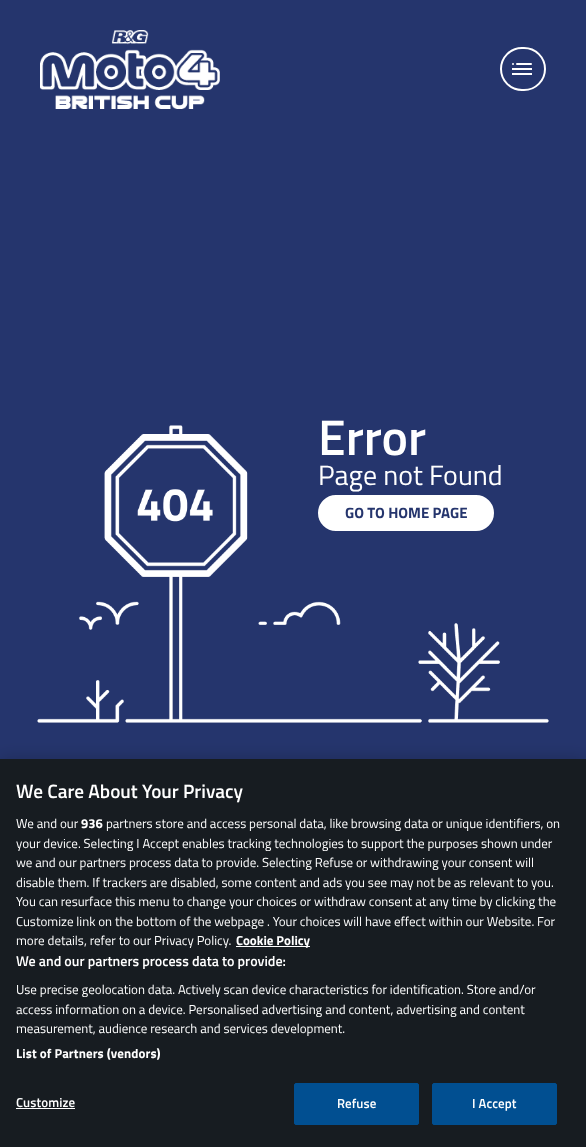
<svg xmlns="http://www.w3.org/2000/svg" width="586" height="1147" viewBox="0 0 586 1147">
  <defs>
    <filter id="blur1" x="-50%" y="-200%" width="200%" height="500%"><feGaussianBlur stdDeviation="9"/></filter>
  </defs>
  <rect width="100%" height="100%" fill="#25356d"/>
  <image x="40" y="30" width="180" height="79" href="img1.png"/>
  <rect x="501" y="48" width="44" height="42" rx="21" fill="none" stroke="#ffffff" stroke-width="2"/>
  <circle cx="513" cy="64" r="1" fill="#ffffff"/>
  <rect x="516" y="63" width="16" height="2" rx="1" fill="#ffffff"/>
  <rect x="512" y="68" width="20" height="2" fill="#ffffff"/>
  <rect x="512" y="73" width="20" height="2" fill="#ffffff"/>
  <image x="37" y="425" width="512" height="298" href="img2.png"/>
  <text x="318" y="455" font-family="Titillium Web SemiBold" font-size="50" font-weight="600" fill="#ffffff">Error</text>
  <text x="318" y="485" font-family="Titillium Web" font-size="28" fill="#ffffff">Page not Found</text>
  <rect x="319" y="496" width="174" height="34" rx="17" fill="#ffffff" stroke="#ffffff" stroke-width="2"/>
  <text x="345" y="518" font-family="Titillium Web" font-size="15" font-weight="bold" fill="#25356d">GO TO HOME PAGE</text>
  <rect x="0" y="759" width="586" height="388" fill="#000000" fill-opacity="0.2" filter="url(#blur1)"/>
  <rect x="0" y="759" width="586" height="388" fill="#171c21"/>
  <text x="16" y="798" font-family="Titillium Web SemiBold" font-size="19.25" font-weight="600" fill="#ffffff">We Care About Your Privacy</text>
  <text x="16" y="828" font-family="Titillium Web" font-size="13" fill="#ffffff">We and our</text>
  <text x="81" y="828" font-family="Titillium Web" font-size="13" font-weight="bold" fill="#ffffff">936</text>
  <text x="106" y="828" font-family="Titillium Web" font-size="13" fill="#ffffff">partners store and access personal data, like browsing data or unique identifiers, on</text>
  <text x="16" y="848" font-family="Titillium Web" font-size="13" fill="#ffffff">your device. Selecting I Accept enables tracking technologies to support the purposes shown under</text>
  <text x="16" y="867" font-family="Titillium Web" font-size="13" fill="#ffffff">we and our partners process data to provide. Selecting Refuse or withdrawing your consent will</text>
  <text x="16" y="887" font-family="Titillium Web" font-size="13" fill="#ffffff">disable them. If trackers are disabled, some content and ads you see may not be as relevant to you.</text>
  <text x="16" y="906" font-family="Titillium Web" font-size="13" fill="#ffffff">You can resurface this menu to change your choices or withdraw consent at any time by clicking the</text>
  <text x="16" y="926" font-family="Titillium Web" font-size="13" fill="#ffffff">Customize link on the bottom of the webpage . Your choices will have effect within our Website. For</text>
  <text x="16" y="945" font-family="Titillium Web" font-size="13" fill="#ffffff">more details, refer to our Privacy Policy.</text>
  <rect x="236" y="946" width="74" height="1" fill="#ffffff"/>
  <text x="236" y="945" font-family="Titillium Web" font-size="13" font-weight="bold" fill="#ffffff">Cookie Policy</text>
  <text x="16" y="966" font-family="Titillium Web SemiBold" font-size="14.1" font-weight="600" fill="#ffffff">We and our partners process data to provide:</text>
  <text x="16" y="994" font-family="Titillium Web" font-size="13" fill="#ffffff">Use precise geolocation data. Actively scan device characteristics for identification. Store and/or</text>
  <text x="16" y="1014" font-family="Titillium Web" font-size="13" fill="#ffffff">access information on a device. Personalised advertising and content, advertising and content</text>
  <text x="16" y="1033" font-family="Titillium Web" font-size="13" fill="#ffffff">measurement, audience research and services development.</text>
  <text x="16" y="1058" font-family="Titillium Web" font-size="13" font-weight="bold" letter-spacing="0.1" fill="#ffffff">List of Partners (vendors)</text>
  <text x="16" y="1107" font-family="Titillium Web SemiBold" font-size="13" font-weight="600" letter-spacing="0.1" fill="#ffffff">Customize</text>
  <rect x="16" y="1108" width="59" height="1" fill="#ffffff"/>
  <rect x="294.5" y="1083.5" width="124" height="41" rx="1.5" fill="#014f91" stroke="#014f91"/>
  <text x="337" y="1108" font-family="Titillium Web SemiBold" font-size="13" font-weight="600" letter-spacing="0.1" fill="#ffffff">Refuse</text>
  <rect x="432.5" y="1083.5" width="124" height="41" rx="1.5" fill="#014f91" stroke="#014f91"/>
  <text x="472" y="1108" font-family="Titillium Web SemiBold" font-size="13" font-weight="600" letter-spacing="0.1" fill="#ffffff">I Accept</text>
</svg>
